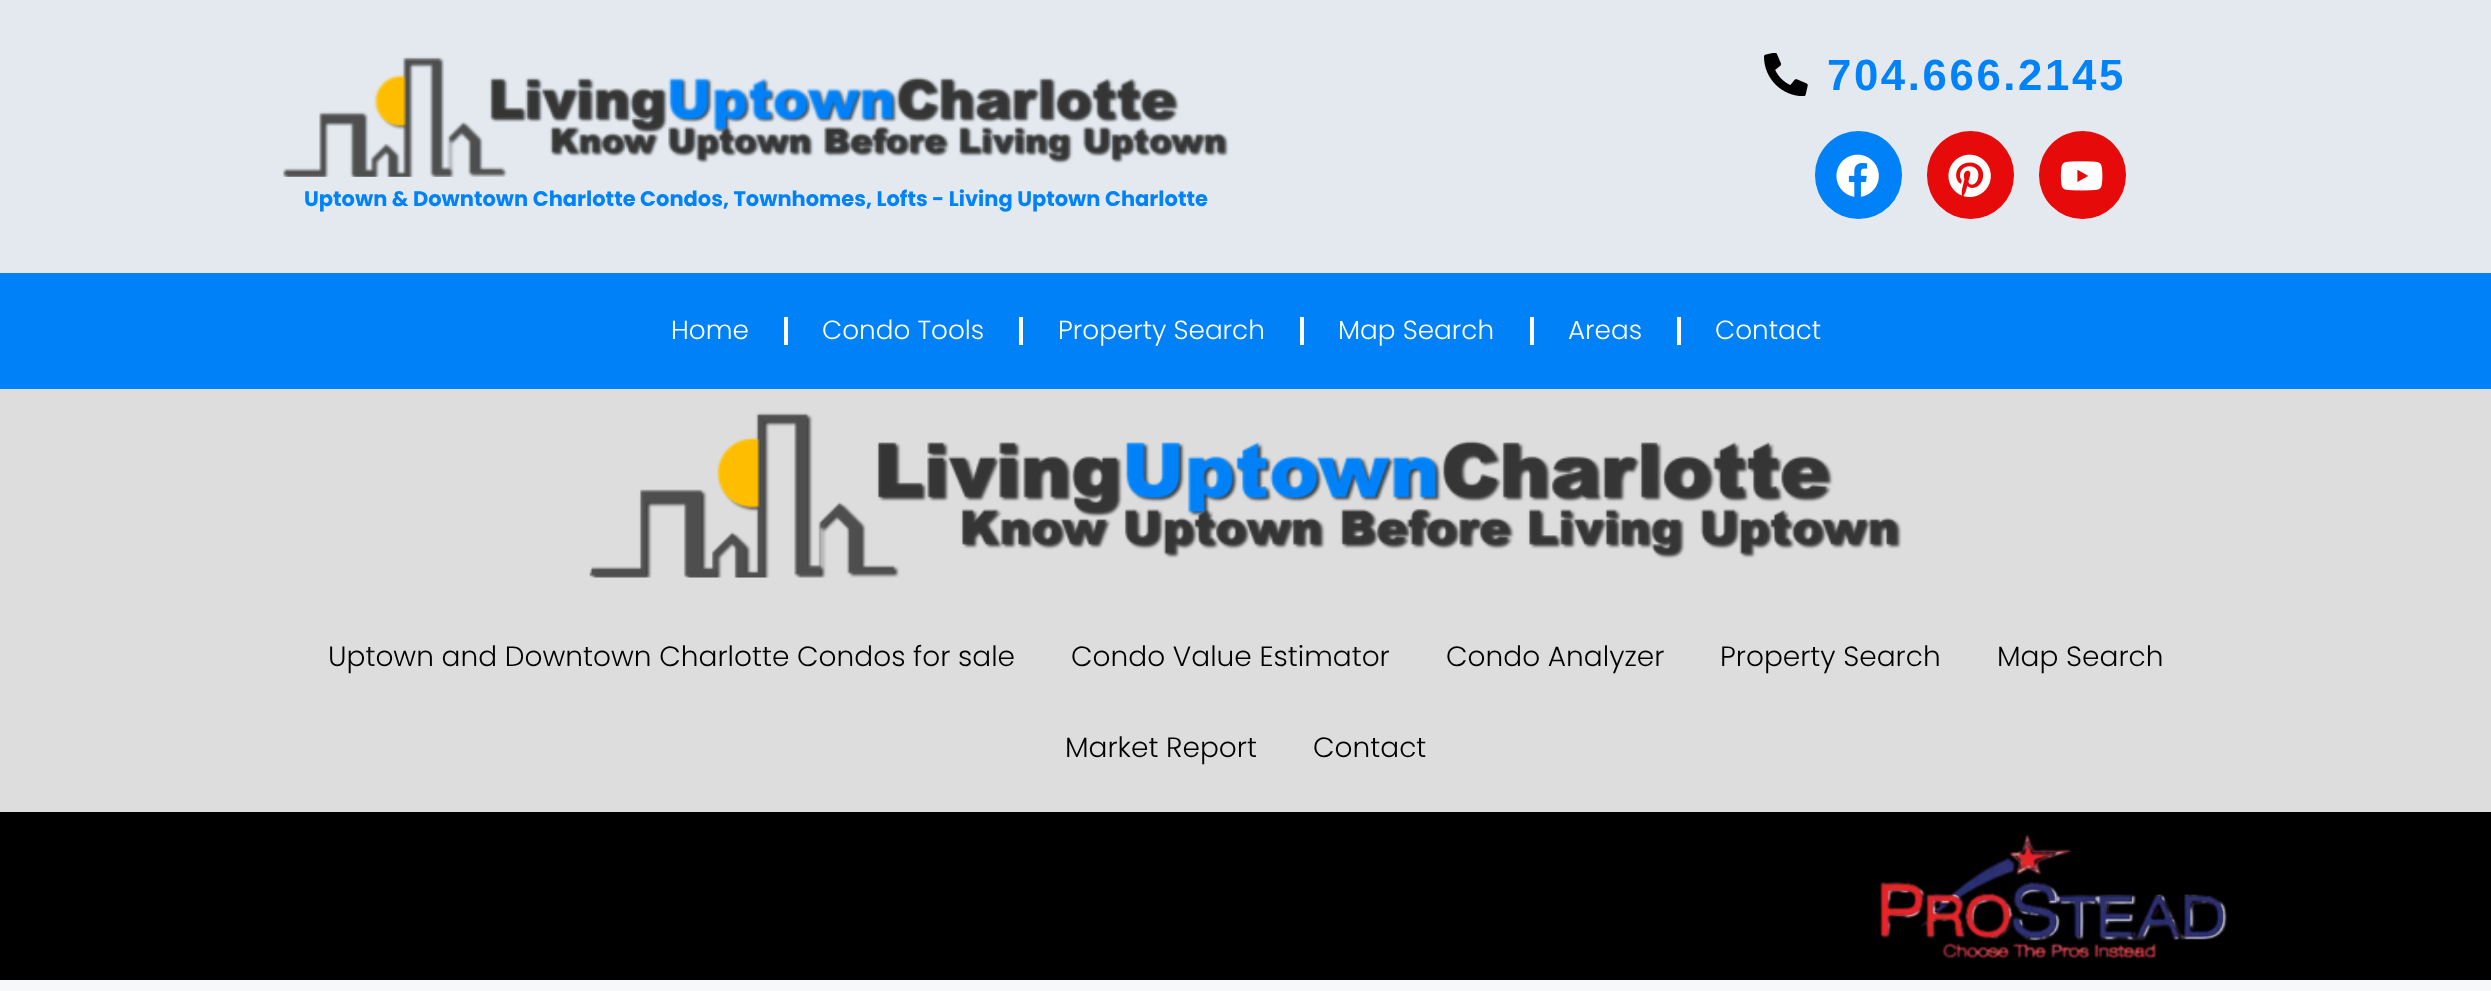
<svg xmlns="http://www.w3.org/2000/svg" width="2491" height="991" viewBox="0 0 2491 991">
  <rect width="100%" height="100%" fill="#f7f8f9"/>
  <rect x="0" y="0" width="2491" height="273" fill="#e3e9ef"/>
  <image x="1764" y="53" width="44" height="43" href="img1.png"/>
  <text x="1827" y="90" font-family="Liberation Sans" font-size="43.75" font-weight="bold" letter-spacing="2.6" fill="#0083f8">704.666.2145</text>
  <rect x="1815" y="131" width="87" height="88" rx="43.5" fill="#0081f8"/>
  <image x="1836" y="154" width="43" height="43" href="img2.png"/>
  <rect x="1927" y="131" width="87" height="88" rx="43.5" fill="#e70a0a"/>
  <image x="1948" y="154" width="43" height="44" href="img3.png"/>
  <rect x="2039" y="131" width="87" height="88" rx="43.5" fill="#e70a0a"/>
  <image x="2060" y="161" width="43" height="30" href="img4.png"/>
  <image x="283" y="56" width="946" height="121" href="img5.png"/>
  <text x="304" y="206" font-family="Poppins" font-size="21" font-weight="bold" fill="#0083f8">Uptown &amp; Downtown Charlotte Condos, Townhomes, Lofts - Living Uptown Charlotte</text>
  <rect x="0" y="273" width="2491" height="116" fill="#0081f8"/>
  <text x="671" y="339" font-family="Poppins" font-size="26.25" font-weight="300" fill="#ffffff">Home</text>
  <rect x="784" y="317" width="4" height="28" fill="#ffffff"/>
  <text x="822" y="339" font-family="Poppins" font-size="26.25" font-weight="300" fill="#ffffff">Condo Tools</text>
  <rect x="1019" y="317" width="4" height="28" fill="#ffffff"/>
  <text x="1058" y="339" font-family="Poppins" font-size="26.25" font-weight="300" fill="#ffffff">Property Search</text>
  <rect x="1300" y="317" width="4" height="28" fill="#ffffff"/>
  <text x="1338" y="339" font-family="Poppins" font-size="26.25" font-weight="300" fill="#ffffff">Map Search</text>
  <rect x="1530" y="317" width="4" height="28" fill="#ffffff"/>
  <text x="1568" y="339" font-family="Poppins" font-size="26.25" font-weight="300" fill="#ffffff">Areas</text>
  <rect x="1677" y="317" width="4" height="28" fill="#ffffff"/>
  <text x="1715" y="339" font-family="Poppins" font-size="26.25" font-weight="300" fill="#ffffff">Contact</text>
  <rect x="0" y="389" width="2491" height="423" fill="#dddddd"/>
  <image x="589" y="412" width="1313" height="166" href="img6.png"/>
  <text x="328" y="666" font-family="Poppins" font-size="28" font-weight="300" fill="#020102">Uptown and Downtown Charlotte Condos for sale</text>
  <text x="1071" y="666" font-family="Poppins" font-size="28" font-weight="300" fill="#020102">Condo Value Estimator</text>
  <text x="1446" y="666" font-family="Poppins" font-size="28" font-weight="300" fill="#020102">Condo Analyzer</text>
  <text x="1720" y="666" font-family="Poppins" font-size="28" font-weight="300" fill="#020102">Property Search</text>
  <text x="1997" y="666" font-family="Poppins" font-size="28" font-weight="300" fill="#020102">Map Search</text>
  <text x="1065" y="757" font-family="Poppins" font-size="28" font-weight="300" fill="#020102">Market Report</text>
  <text x="1313" y="757" font-family="Poppins" font-size="28" font-weight="300" fill="#020102">Contact</text>
  <rect x="0" y="812" width="2491" height="168" fill="#000000"/>
  <image x="1880" y="834" width="348" height="125" href="img7.png"/>
</svg>
